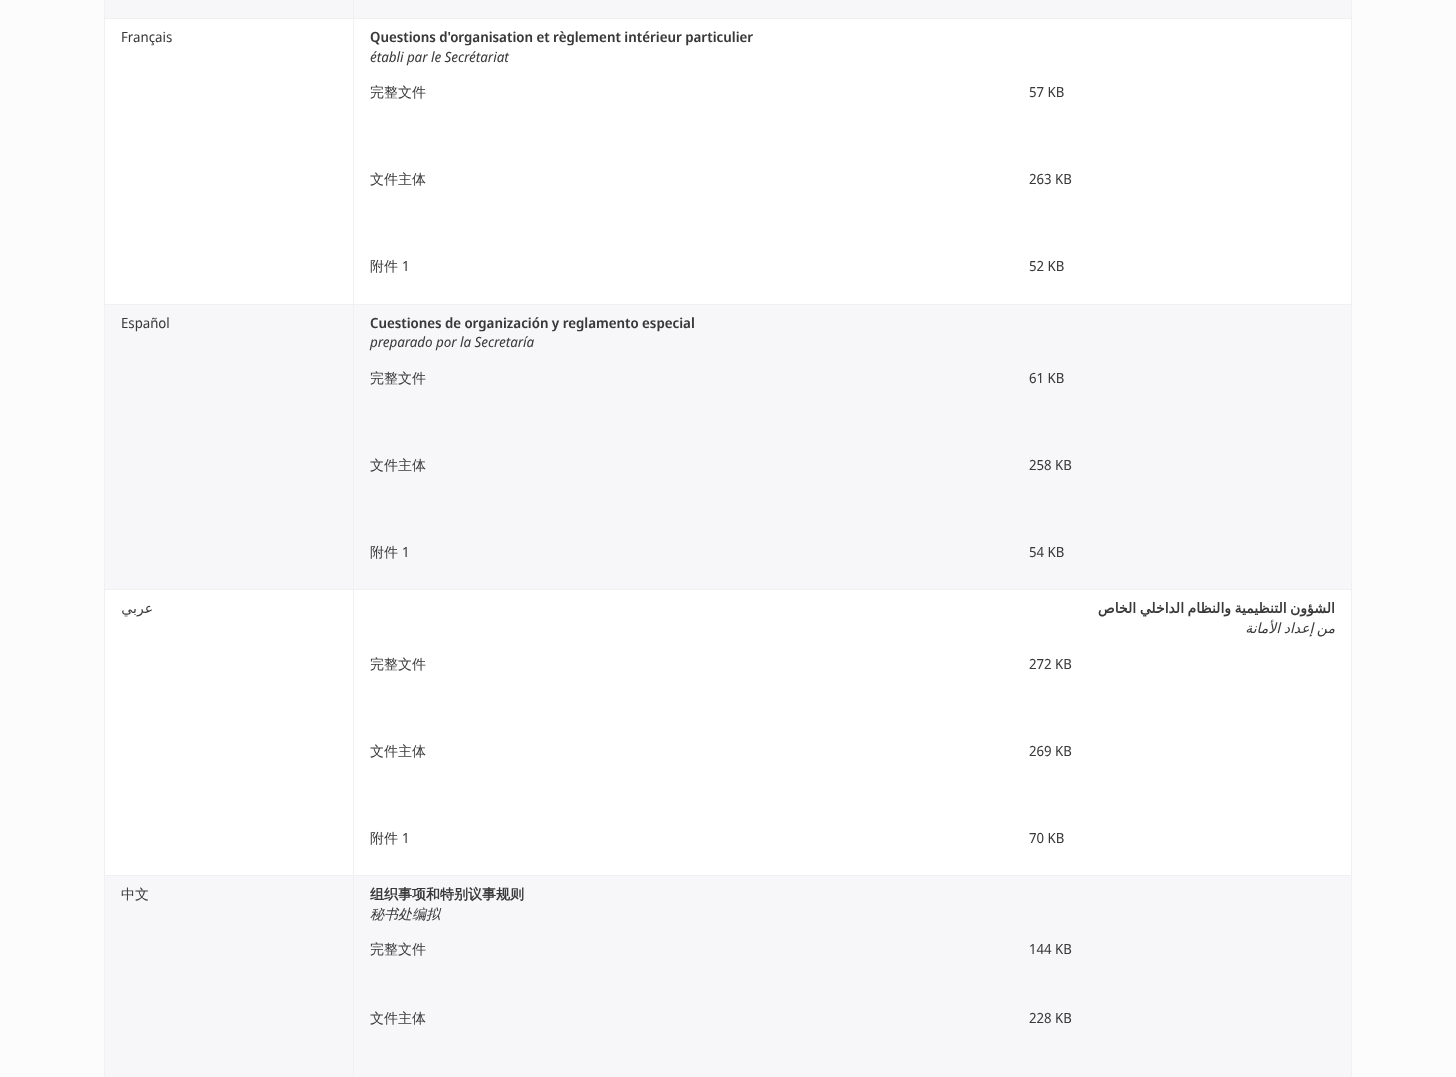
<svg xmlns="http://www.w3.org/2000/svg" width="1456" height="1077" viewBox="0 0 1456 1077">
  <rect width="100%" height="100%" fill="#fcfcfc"/>
  <rect x="105" y="19" width="1246" height="856" fill="#ffffff"/>
  <rect x="1351" y="0" width="1" height="1077" fill="#f0f0f0"/>
  <rect x="104" y="0" width="1" height="1077" fill="#f0f0f0"/>
  <rect x="105" y="0" width="248" height="18" fill="#f7f7fa"/>
  <rect x="354" y="0" width="997" height="18" fill="#f7f7fa"/>
  <rect x="104" y="18" width="1248" height="1" fill="#f0f0f0"/>
  <rect x="104" y="304" width="1248" height="1" fill="#f0f0f0"/>
  <rect x="104" y="589" width="1248" height="1" fill="#f0f0f0"/>
  <rect x="104" y="875" width="1248" height="1" fill="#f0f0f0"/>
  <rect x="353" y="875" width="1" height="202" fill="#f0f0f0"/>
  <rect x="353" y="589" width="1" height="287" fill="#f0f0f0"/>
  <rect x="353" y="304" width="1" height="286" fill="#f0f0f0"/>
  <rect x="353" y="0" width="1" height="305" fill="#f0f0f0"/>
  <text x="121" y="42" font-family="Noto Sans Display" font-size="14" fill="#393939">Français</text>
  <text x="370" y="42" font-family="Noto Sans Display" font-size="14" font-weight="600" fill="#393939">Questions d'organisation et règlement intérieur particulier</text>
  <text x="370" y="62" font-family="Noto Sans Display" font-size="14" font-style="italic" fill="#393939">établi par le Secrétariat</text>
  <text x="370" y="97" font-family="WenQuanYi Zen Hei" font-size="14" font-weight="500" fill="#393939">完整文件</text>
  <text x="1029" y="97" font-family="Noto Sans Display" font-size="14" fill="#393939">57 KB</text>
  <text x="370" y="184" font-family="WenQuanYi Zen Hei" font-size="14" font-weight="500" fill="#393939">文件主体</text>
  <text x="1029" y="184" font-family="Noto Sans Display" font-size="14" fill="#393939">263 KB</text>
  <text x="370" y="271" font-family="WenQuanYi Zen Hei" font-size="14" font-weight="500" fill="#393939">附件</text>
  <text x="402" y="271" font-family="Noto Sans Display" font-size="14" fill="#393939">1</text>
  <text x="1029" y="271" font-family="Noto Sans Display" font-size="14" fill="#393939">52 KB</text>
  <rect x="105" y="305" width="248" height="284" fill="#f7f7fa"/>
  <text x="121" y="328" font-family="Noto Sans Display" font-size="14" fill="#393939">Español</text>
  <rect x="354" y="305" width="997" height="284" fill="#f7f7fa"/>
  <text x="370" y="328" font-family="Noto Sans Display" font-size="14" font-weight="600" fill="#393939">Cuestiones de organización y reglamento especial</text>
  <text x="370" y="347" font-family="Noto Sans Display" font-size="14" font-style="italic" fill="#393939">preparado por la Secretaría</text>
  <text x="370" y="383" font-family="WenQuanYi Zen Hei" font-size="14" font-weight="500" fill="#393939">完整文件</text>
  <text x="1029" y="383" font-family="Noto Sans Display" font-size="14" fill="#393939">61 KB</text>
  <text x="370" y="470" font-family="WenQuanYi Zen Hei" font-size="14" font-weight="500" fill="#393939">文件主体</text>
  <text x="1029" y="470" font-family="Noto Sans Display" font-size="14" fill="#393939">258 KB</text>
  <text x="370" y="557" font-family="WenQuanYi Zen Hei" font-size="14" font-weight="500" fill="#393939">附件</text>
  <text x="402" y="557" font-family="Noto Sans Display" font-size="14" fill="#393939">1</text>
  <text x="1029" y="557" font-family="Noto Sans Display" font-size="14" fill="#393939">54 KB</text>
  <text x="153" y="613" font-family="DejaVu Sans" font-size="14" direction="rtl" fill="#393939">عربي</text>
  <text x="1335" y="613" word-spacing="-1" font-family="DejaVu Sans" font-size="14" font-weight="bold" direction="rtl" fill="#393939">الشؤون التنظيمية والنظام الداخلي الخاص</text>
  <text x="1335" y="633" word-spacing="-1" font-family="DejaVu Sans" font-size="14" font-style="italic" direction="rtl" fill="#393939">من إعداد الأمانة</text>
  <text x="370" y="669" font-family="WenQuanYi Zen Hei" font-size="14" font-weight="500" fill="#393939">完整文件</text>
  <text x="1029" y="669" font-family="Noto Sans Display" font-size="14" fill="#393939">272 KB</text>
  <text x="370" y="756" font-family="WenQuanYi Zen Hei" font-size="14" font-weight="500" fill="#393939">文件主体</text>
  <text x="1029" y="756" font-family="Noto Sans Display" font-size="14" fill="#393939">269 KB</text>
  <text x="370" y="843" font-family="WenQuanYi Zen Hei" font-size="14" font-weight="500" fill="#393939">附件</text>
  <text x="402" y="843" font-family="Noto Sans Display" font-size="14" fill="#393939">1</text>
  <text x="1029" y="843" font-family="Noto Sans Display" font-size="14" fill="#393939">70 KB</text>
  <rect x="105" y="876" width="248" height="201" fill="#f7f7fa"/>
  <text x="121" y="899" font-family="WenQuanYi Zen Hei" font-size="14" font-weight="500" fill="#393939">中文</text>
  <rect x="354" y="876" width="997" height="201" fill="#f7f7fa"/>
  <text x="370" y="899" font-family="WenQuanYi Zen Hei" font-size="14" font-weight="bold" fill="#393939">组织事项和特别议事规则</text>
  <text x="370" y="919" font-family="WenQuanYi Zen Hei" font-size="14" font-weight="500" font-style="italic" fill="#393939">秘书处编拟</text>
  <text x="370" y="954" font-family="WenQuanYi Zen Hei" font-size="14" font-weight="500" fill="#393939">完整文件</text>
  <text x="1029" y="954" font-family="Noto Sans Display" font-size="14" fill="#393939">144 KB</text>
  <text x="370" y="1023" font-family="WenQuanYi Zen Hei" font-size="14" font-weight="500" fill="#393939">文件主体</text>
  <text x="1029" y="1023" font-family="Noto Sans Display" font-size="14" fill="#393939">228 KB</text>
</svg>
